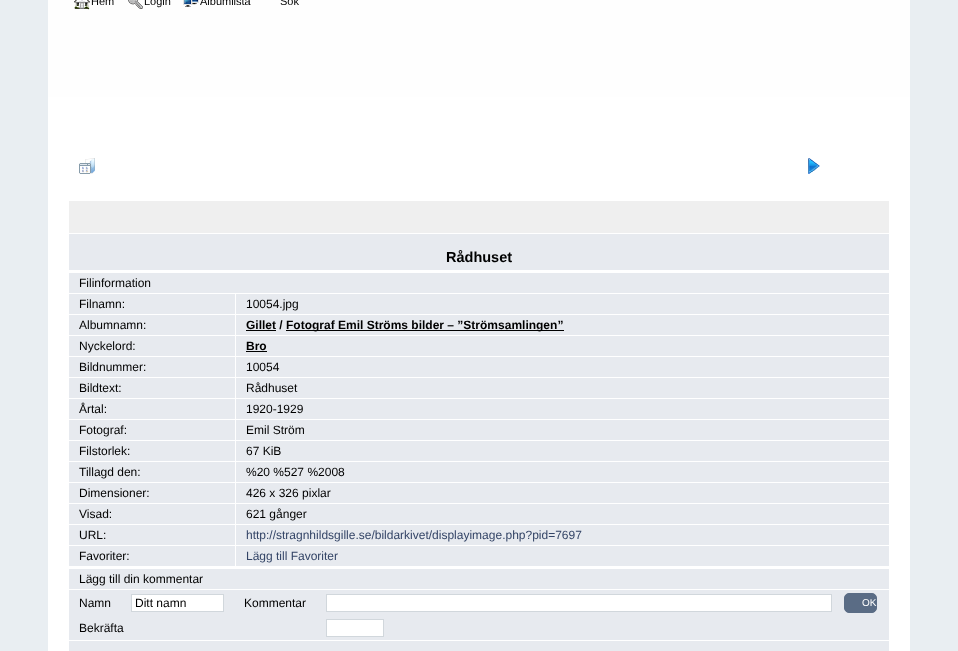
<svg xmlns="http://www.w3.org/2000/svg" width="958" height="651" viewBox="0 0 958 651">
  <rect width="100%" height="100%" fill="#e9eef2"/>
  <rect x="48" y="0" width="862" height="97" fill="#fefefe"/>
  <image x="74" y="0" width="16" height="10" href="img1.png"/>
  <text x="91" y="5" font-family="Liberation Sans" font-size="11" fill="#000000">Hem</text>
  <image x="128" y="0" width="15" height="9" href="img2.png"/>
  <text x="144" y="5" font-family="Liberation Sans" font-size="11" fill="#000000">Login</text>
  <image x="183" y="0" width="16" height="7" href="img3.png"/>
  <text x="200" y="5" font-family="Liberation Sans" font-size="11" fill="#000000">Albumlista</text>
  <text x="280" y="5" font-family="Liberation Sans" font-size="11" fill="#000000">Sök</text>
  <rect x="48" y="97" width="862" height="554" fill="#ffffff"/>
  <image x="79" y="158" width="16" height="16" href="img4.png"/>
  <image x="808" y="158" width="12" height="16" href="img5.png"/>
  <rect x="69" y="201" width="820" height="32" fill="#efefef"/>
  <rect x="69" y="234" width="820" height="36" fill="#e7eaef"/>
  <text x="446" y="262" font-family="Liberation Sans" font-size="14.5" font-weight="bold" fill="#000000">Rådhuset</text>
  <rect x="69" y="273" width="820" height="20" fill="#e7eaef"/>
  <text x="79" y="287" font-family="Liberation Sans" font-size="12" fill="#000000">Filinformation</text>
  <rect x="69" y="294" width="166" height="20" fill="#e7eaef"/>
  <text x="79" y="308" font-family="Liberation Sans" font-size="12" fill="#000000">Filnamn:</text>
  <rect x="236" y="294" width="653" height="20" fill="#e7eaef"/>
  <text x="246" y="308" font-family="Liberation Sans" font-size="12" fill="#000000">10054.jpg</text>
  <rect x="69" y="315" width="166" height="20" fill="#e7eaef"/>
  <text x="79" y="329" font-family="Liberation Sans" font-size="12" fill="#000000">Albumnamn:</text>
  <rect x="236" y="315" width="653" height="20" fill="#e7eaef"/>
  <text x="246" y="329" font-family="Liberation Sans" font-size="12" font-weight="bold" fill="#000000">Gillet /</text>
  <rect x="246" y="330" width="30" height="1" fill="#000000"/>
  <rect x="286" y="330" width="278" height="1" fill="#000000"/>
  <text x="286" y="329" font-family="Liberation Sans" font-size="12" font-weight="bold" fill="#000000">Fotograf Emil Ströms bilder – ”Strömsamlingen”</text>
  <rect x="69" y="336" width="166" height="20" fill="#e7eaef"/>
  <text x="79" y="350" font-family="Liberation Sans" font-size="12" fill="#000000">Nyckelord:</text>
  <rect x="236" y="336" width="653" height="20" fill="#e7eaef"/>
  <text x="246" y="350" font-family="Liberation Sans" font-size="12" font-weight="bold" fill="#000000">Bro</text>
  <rect x="246" y="351" width="21" height="1" fill="#000000"/>
  <rect x="69" y="357" width="166" height="20" fill="#e7eaef"/>
  <text x="79" y="371" font-family="Liberation Sans" font-size="12" fill="#000000">Bildnummer:</text>
  <rect x="236" y="357" width="653" height="20" fill="#e7eaef"/>
  <text x="246" y="371" font-family="Liberation Sans" font-size="12" fill="#000000">10054</text>
  <rect x="69" y="378" width="166" height="20" fill="#e7eaef"/>
  <text x="79" y="392" font-family="Liberation Sans" font-size="12" fill="#000000">Bildtext:</text>
  <rect x="236" y="378" width="653" height="20" fill="#e7eaef"/>
  <text x="246" y="392" font-family="Liberation Sans" font-size="12" fill="#000000">Rådhuset</text>
  <rect x="69" y="399" width="166" height="20" fill="#e7eaef"/>
  <text x="79" y="413" font-family="Liberation Sans" font-size="12" fill="#000000">Årtal:</text>
  <rect x="236" y="399" width="653" height="20" fill="#e7eaef"/>
  <text x="246" y="413" font-family="Liberation Sans" font-size="12" fill="#000000">1920-1929</text>
  <rect x="69" y="420" width="166" height="20" fill="#e7eaef"/>
  <text x="79" y="434" font-family="Liberation Sans" font-size="12" fill="#000000">Fotograf:</text>
  <rect x="236" y="420" width="653" height="20" fill="#e7eaef"/>
  <text x="246" y="434" font-family="Liberation Sans" font-size="12" fill="#000000">Emil Ström</text>
  <rect x="69" y="441" width="166" height="20" fill="#e7eaef"/>
  <text x="79" y="455" font-family="Liberation Sans" font-size="12" fill="#000000">Filstorlek:</text>
  <rect x="236" y="441" width="653" height="20" fill="#e7eaef"/>
  <text x="246" y="455" font-family="Liberation Sans" font-size="12" fill="#000000">67 KiB</text>
  <rect x="69" y="462" width="166" height="20" fill="#e7eaef"/>
  <text x="79" y="476" font-family="Liberation Sans" font-size="12" fill="#000000">Tillagd den:</text>
  <rect x="236" y="462" width="653" height="20" fill="#e7eaef"/>
  <text x="246" y="476" font-family="Liberation Sans" font-size="12" fill="#000000">%20 %527 %2008</text>
  <rect x="69" y="483" width="166" height="20" fill="#e7eaef"/>
  <text x="79" y="497" font-family="Liberation Sans" font-size="12" fill="#000000">Dimensioner:</text>
  <rect x="236" y="483" width="653" height="20" fill="#e7eaef"/>
  <text x="246" y="497" font-family="Liberation Sans" font-size="12" fill="#000000">426 x 326 pixlar</text>
  <rect x="69" y="504" width="166" height="20" fill="#e7eaef"/>
  <text x="79" y="518" font-family="Liberation Sans" font-size="12" fill="#000000">Visad:</text>
  <rect x="236" y="504" width="653" height="20" fill="#e7eaef"/>
  <text x="246" y="518" font-family="Liberation Sans" font-size="12" fill="#000000">621 gånger</text>
  <rect x="69" y="525" width="166" height="20" fill="#e7eaef"/>
  <text x="79" y="539" font-family="Liberation Sans" font-size="12" fill="#000000">URL:</text>
  <rect x="236" y="525" width="653" height="20" fill="#e7eaef"/>
  <text x="246" y="539" font-family="Liberation Sans" font-size="12" fill="#334466">http://stragnhildsgille.se/bildarkivet/displayimage.php?pid=7697</text>
  <rect x="69" y="546" width="166" height="20" fill="#e7eaef"/>
  <text x="79" y="560" font-family="Liberation Sans" font-size="12" fill="#000000">Favoriter:</text>
  <rect x="236" y="546" width="653" height="20" fill="#e7eaef"/>
  <text x="246" y="560" font-family="Liberation Sans" font-size="12" fill="#334466">Lägg till Favoriter</text>
  <rect x="69" y="569" width="820" height="20" fill="#e7eaef"/>
  <text x="79" y="583" font-family="Liberation Sans" font-size="12" fill="#000000">Lägg till din kommentar</text>
  <rect x="69" y="590" width="820" height="26" fill="#e7eaef"/>
  <text x="79" y="607" font-family="Liberation Sans" font-size="12" fill="#000000">Namn</text>
  <rect x="131.5" y="594.5" width="92" height="17" fill="#ffffff" stroke="#d1d7dc"/>
  <text x="135" y="607" font-family="Liberation Sans" font-size="12" fill="#000000">Ditt namn</text>
  <text x="244" y="607" font-family="Liberation Sans" font-size="12" fill="#000000">Kommentar</text>
  <rect x="326.5" y="594.5" width="505" height="17" fill="#ffffff" stroke="#d1d7dc"/>
  <rect x="844.5" y="593.5" width="32" height="19" rx="4.5" fill="#5a6c85" stroke="#5a6c85"/>
  <text x="862" y="606" font-family="Liberation Sans" font-size="10" fill="#ffffff">OK</text>
  <rect x="69" y="616" width="820" height="24" fill="#e7eaef"/>
  <text x="79" y="632" font-family="Liberation Sans" font-size="12" fill="#000000">Bekräfta</text>
  <rect x="326.5" y="619.5" width="57" height="17" fill="#ffffff" stroke="#d1d7dc"/>
  <rect x="69" y="641" width="820" height="10" fill="#e7eaef"/>
</svg>
